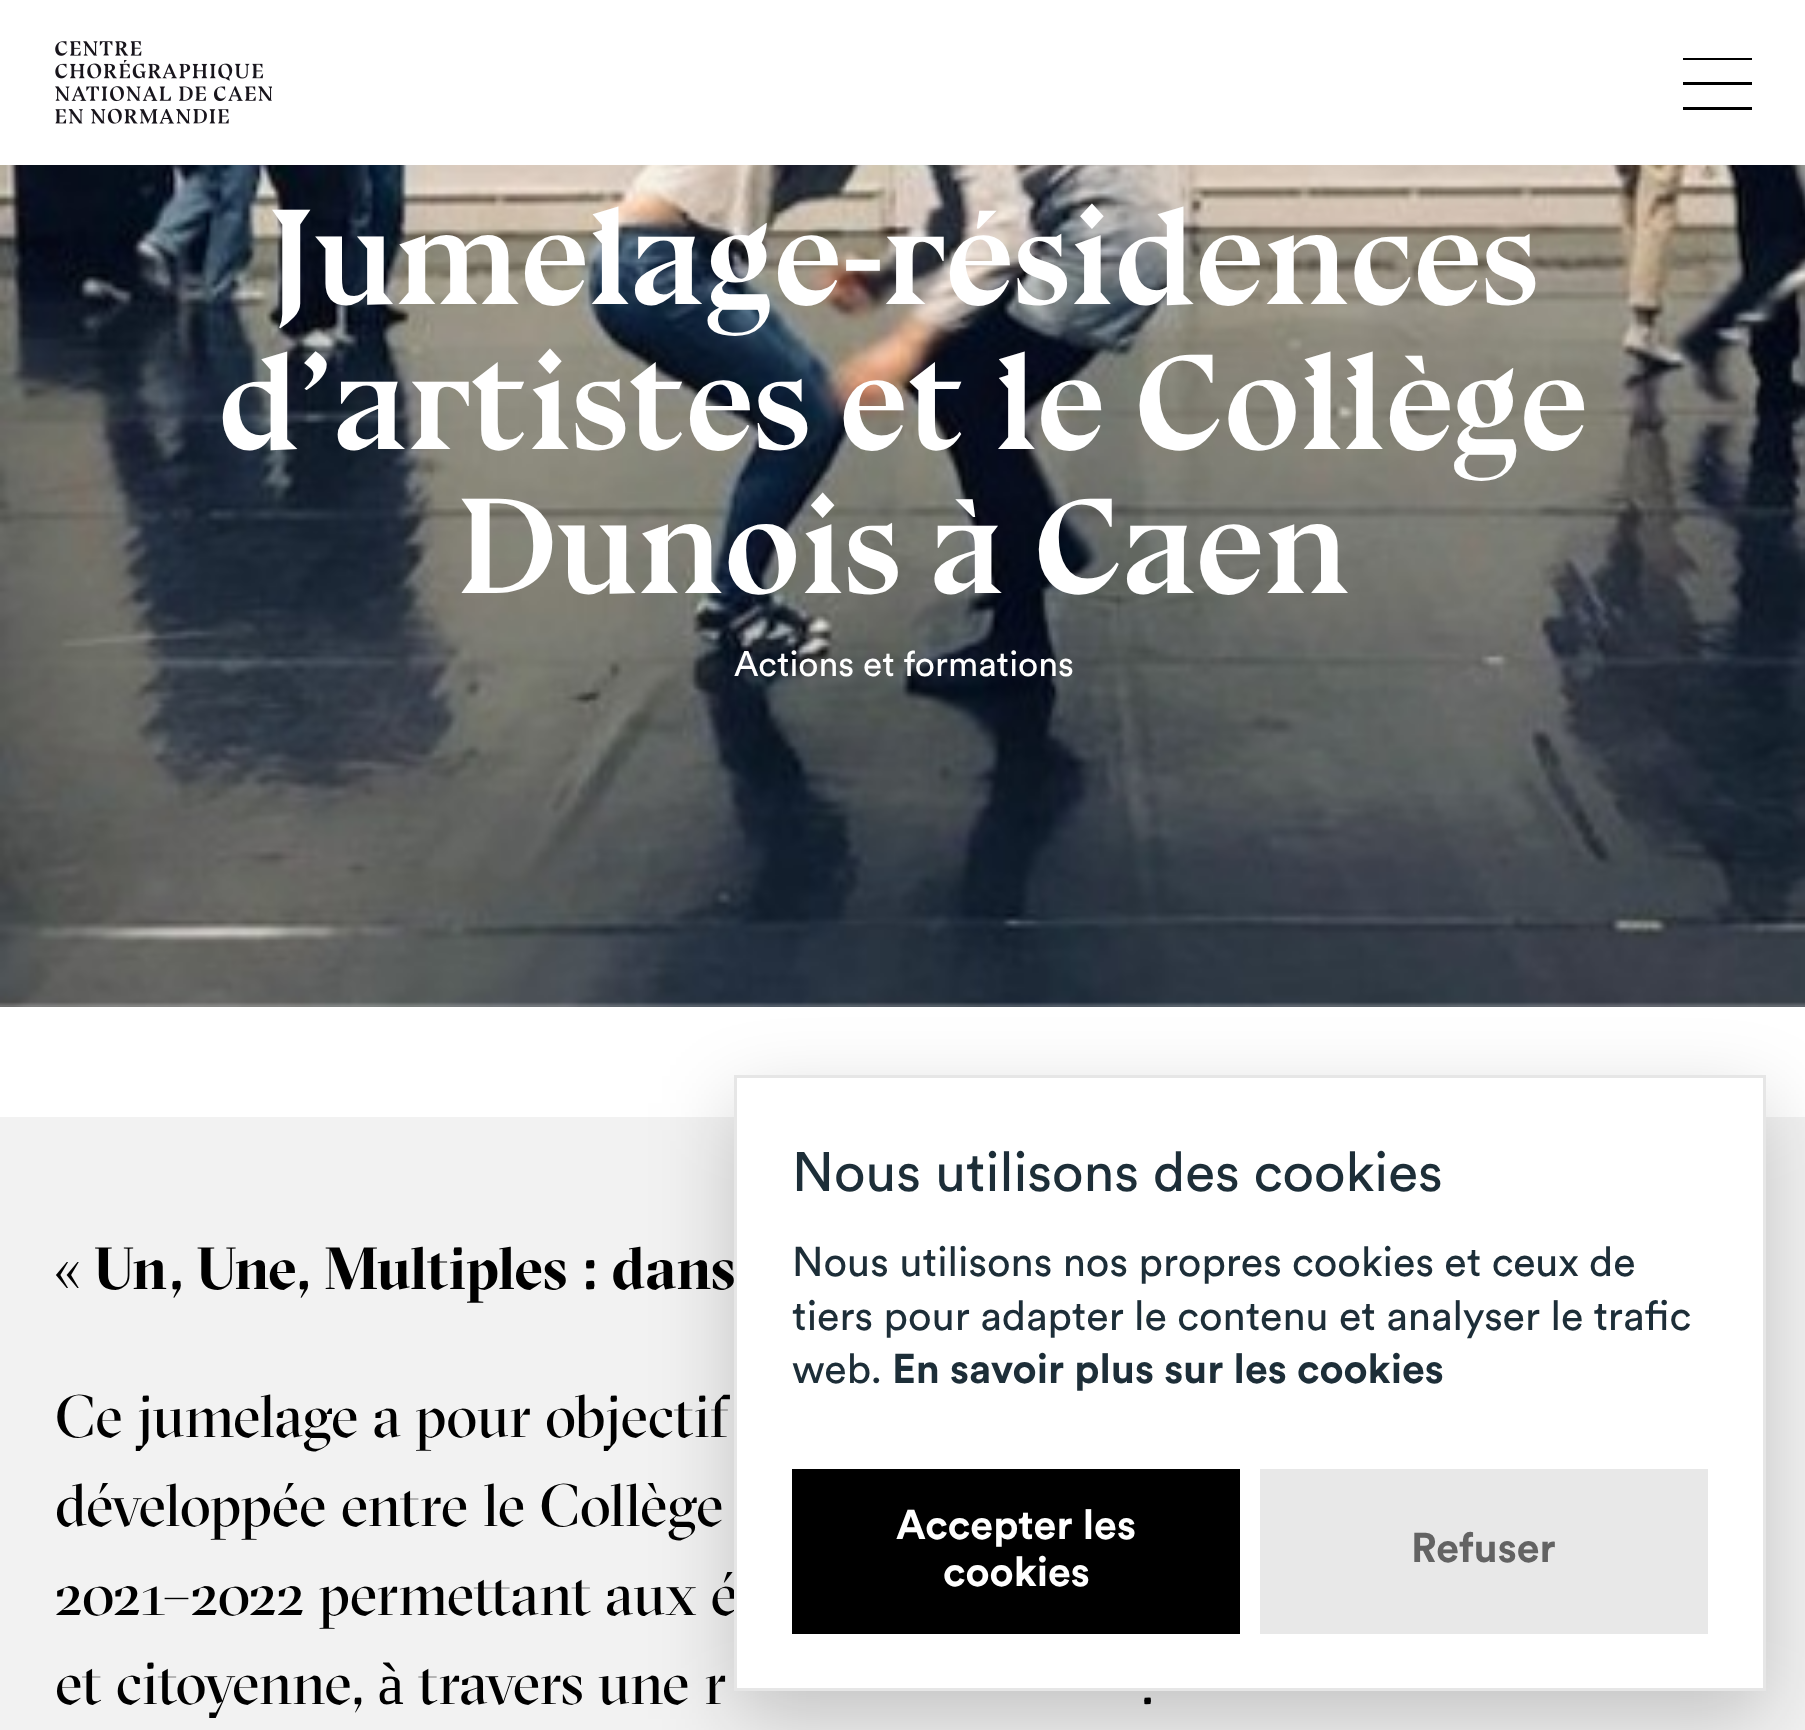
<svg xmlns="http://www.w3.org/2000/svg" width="1805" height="1730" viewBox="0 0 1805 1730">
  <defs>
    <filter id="blur1" x="-50%" y="-200%" width="200%" height="500%"><feGaussianBlur stdDeviation="41"/></filter>
  </defs>
  <rect width="100%" height="100%" fill="#ffffff"/>
  <image x="55" y="41" width="217" height="83" href="img1.png"/>
  <path d="M1683 58H1752V60H1683ZM1683 82H1752V85H1683ZM1683 107H1752V110H1683Z" fill="#000000"/>
  <image x="0" y="165" width="1805" height="842" href="img2.png"/>
  <text x="268" y="304" font-family="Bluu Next" font-size="137.5" font-weight="bold" fill="#ffffff">Jumelage-résidences</text>
  <text x="218" y="449" font-family="Bluu Next" font-size="137.5" font-weight="bold" fill="#ffffff">d’artistes et le Collège</text>
  <text x="456" y="593" font-family="Bluu Next" font-size="137.5" font-weight="bold" fill="#ffffff">Dunois à Caen</text>
  <text x="734" y="676" font-family="Circular" font-size="35.25" fill="#ffffff">Actions et formations</text>
  <rect x="0" y="1117" width="1805" height="613" fill="#f2f2f2"/>
  <text x="55" y="1289" font-family="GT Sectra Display" font-size="59.4" font-weight="bold" fill="#000000">« Un, Une, Multiples : dans</text>
  <text x="55" y="1437" font-family="GT Sectra Display" font-size="59.4" fill="#000000">Ce jumelage a pour objectif</text>
  <text x="55" y="1526" font-family="GT Sectra Display" font-size="59.4" fill="#000000">développée entre le Collège</text>
  <text x="55" y="1615" font-family="GT Sectra Display" font-size="59.4" fill="#000000">2021–2022 permettant aux é</text>
  <text x="55" y="1704" font-family="GT Sectra Display" font-size="59.4" fill="#000000">et citoyenne, à travers une r</text>
  <text x="1140" y="1704" font-family="GT Sectra Display" font-size="59.4" fill="#000000">.</text>
  <rect x="734" y="1103" width="1032" height="616" fill="#020203" fill-opacity="0.2" filter="url(#blur1)"/>
  <rect x="735.5" y="1076.5" width="1029" height="613" fill="#ffffff" stroke="#e6e6e6" stroke-width="3"/>
  <text x="792" y="1191" font-family="Circular" font-size="55" fill="#1d2e38">Nous utilisons des cookies</text>
  <text x="792" y="1276" font-family="Circular" font-size="41.25" fill="#1d2e38">Nous utilisons nos propres cookies et ceux de</text>
  <text x="792" y="1330" font-family="Circular" font-size="41.25" fill="#1d2e38">tiers pour adapter le contenu et analyser le trafic</text>
  <text x="792" y="1383" font-family="Circular" font-size="41.25" fill="#1d2e38">web.</text>
  <text x="892" y="1383" font-family="Circular" font-size="41.25" font-weight="bold" fill="#1d2e38">En savoir plus sur les cookies</text>
  <rect x="792" y="1469" width="448" height="165" fill="#000000"/>
  <text x="896" y="1539" font-family="Circular" font-size="41.25" font-weight="bold" fill="#ffffff">Accepter les</text>
  <text x="943" y="1586" font-family="Circular" font-size="41.25" font-weight="bold" fill="#ffffff">cookies</text>
  <rect x="1260" y="1469" width="448" height="165" fill="#e8e8e8"/>
  <text x="1411" y="1562" font-family="Circular" font-size="41.25" font-weight="bold" fill="#636363">Refuser</text>
</svg>
